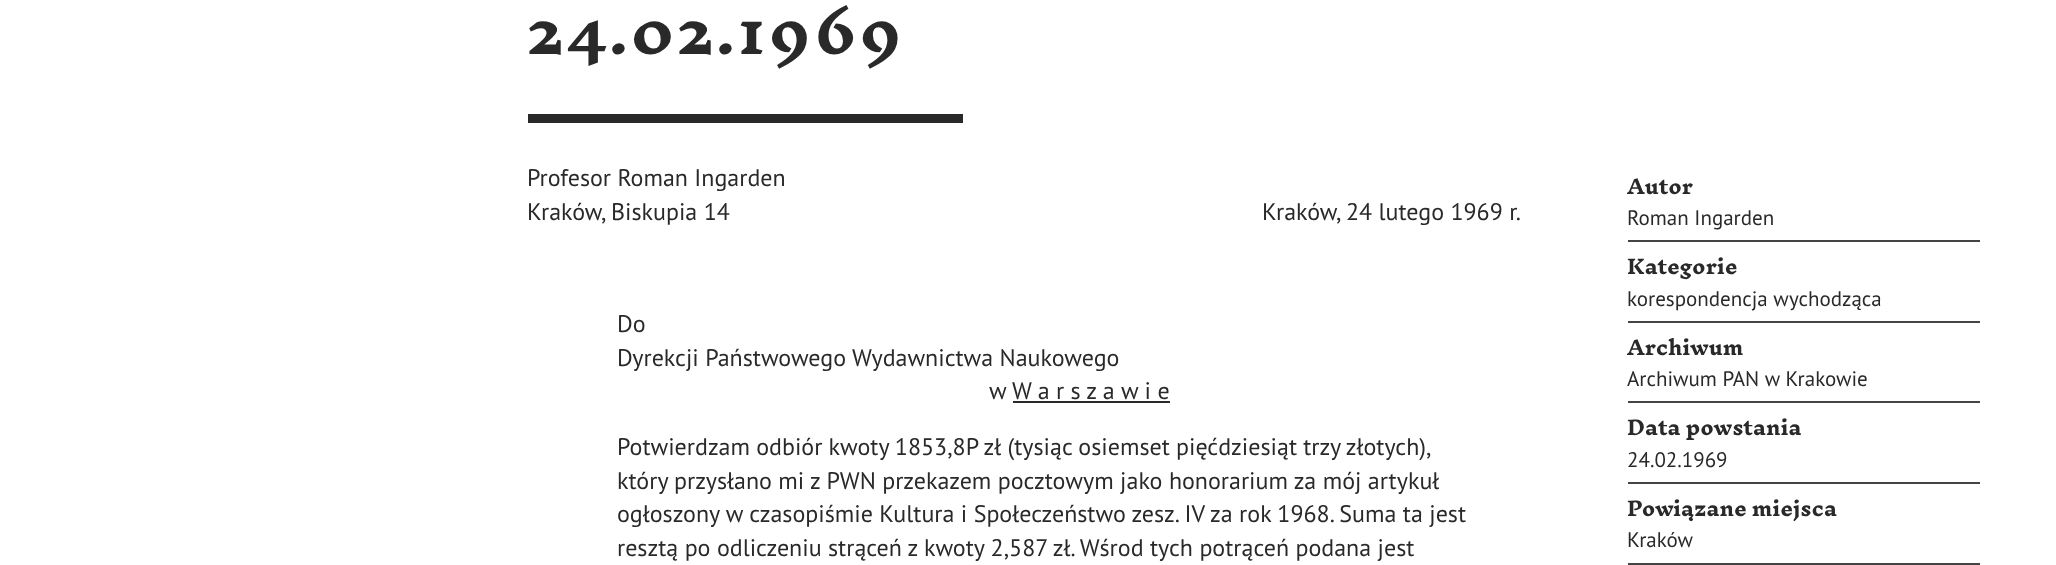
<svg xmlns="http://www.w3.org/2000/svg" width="2056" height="565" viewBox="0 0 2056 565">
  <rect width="100%" height="100%" fill="#ffffff"/>
  <text x="527" y="54" font-family="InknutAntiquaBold" font-size="55.5" font-weight="bold" letter-spacing="3" fill="#292929">24.02.1969</text>
  <rect x="528" y="114" width="435" height="9" fill="#292929"/>
  <text x="527" y="186" font-family="PT Sans" font-size="24" fill="#292929">Profesor Roman Ingarden</text>
  <text x="527" y="220" font-family="PT Sans" font-size="24" fill="#292929">Kraków, Biskupia 14</text>
  <text x="1262" y="220" font-family="PT Sans" font-size="24" fill="#292929">Kraków, 24 lutego 1969 r.</text>
  <rect x="1628" y="240" width="352" height="2" fill="#444444"/>
  <text x="1627" y="194" font-family="InknutAntiquaBold" font-size="19.5" font-weight="bold" fill="#292929">Autor</text>
  <text x="1627" y="225" font-family="PT Sans" font-size="21" fill="#292929">Roman Ingarden</text>
  <rect x="1628" y="321" width="352" height="2" fill="#444444"/>
  <text x="1627" y="274" font-family="InknutAntiquaBold" font-size="19.5" font-weight="bold" fill="#292929">Kategorie</text>
  <text x="1627" y="306" font-family="PT Sans" font-size="21" fill="#292929">korespondencja wychodząca</text>
  <rect x="1628" y="401" width="352" height="2" fill="#444444"/>
  <text x="1627" y="355" font-family="InknutAntiquaBold" font-size="19.5" font-weight="bold" fill="#292929">Archiwum</text>
  <text x="1627" y="386" font-family="PT Sans" font-size="21" fill="#292929">Archiwum PAN w Krakowie</text>
  <rect x="1628" y="482" width="352" height="2" fill="#444444"/>
  <text x="1627" y="435" font-family="InknutAntiquaBold" font-size="19.5" font-weight="bold" fill="#292929">Data powstania</text>
  <text x="1627" y="467" font-family="PT Sans" font-size="21" fill="#292929">24.02.1969</text>
  <rect x="1628" y="563" width="352" height="2" fill="#444444"/>
  <text x="1627" y="516" font-family="InknutAntiquaBold" font-size="19.5" font-weight="bold" fill="#292929">Powiązane miejsca</text>
  <text x="1627" y="547" font-family="PT Sans" font-size="21" fill="#292929">Kraków</text>
  <text x="617" y="332" font-family="PT Sans" font-size="24" fill="#292929">Do</text>
  <text x="617" y="366" font-family="PT Sans" font-size="24" fill="#292929">Dyrekcji Państwowego Wydawnictwa Naukowego</text>
  <text x="989" y="399" font-family="PT Sans" font-size="24" fill="#292929">w</text>
  <text x="1012" y="399" font-family="PT Sans" font-size="24" fill="#292929">W a r s z a w i e</text>
  <rect x="1013" y="401" width="157" height="2" fill="#292929"/>
  <text x="617" y="455" word-spacing="-0.25" font-family="PT Sans" font-size="24" fill="#292929">Potwierdzam odbiór kwoty 1853,8P zł (tysiąc osiemset pięćdziesiąt trzy złotych),</text>
  <text x="617" y="489" font-family="PT Sans" font-size="24" fill="#292929">który przysłano mi z PWN przekazem pocztowym jako honorarium za mój artykuł</text>
  <text x="617" y="522" font-family="PT Sans" font-size="24" fill="#292929">ogłoszony w czasopiśmie Kultura i Społeczeństwo zesz. IV za rok 1968. Suma ta jest</text>
  <text x="617" y="556" font-family="PT Sans" font-size="24" fill="#292929">resztą po odliczeniu strąceń z kwoty 2,587 zł. Wśrod tych potrąceń podana jest</text>
</svg>
